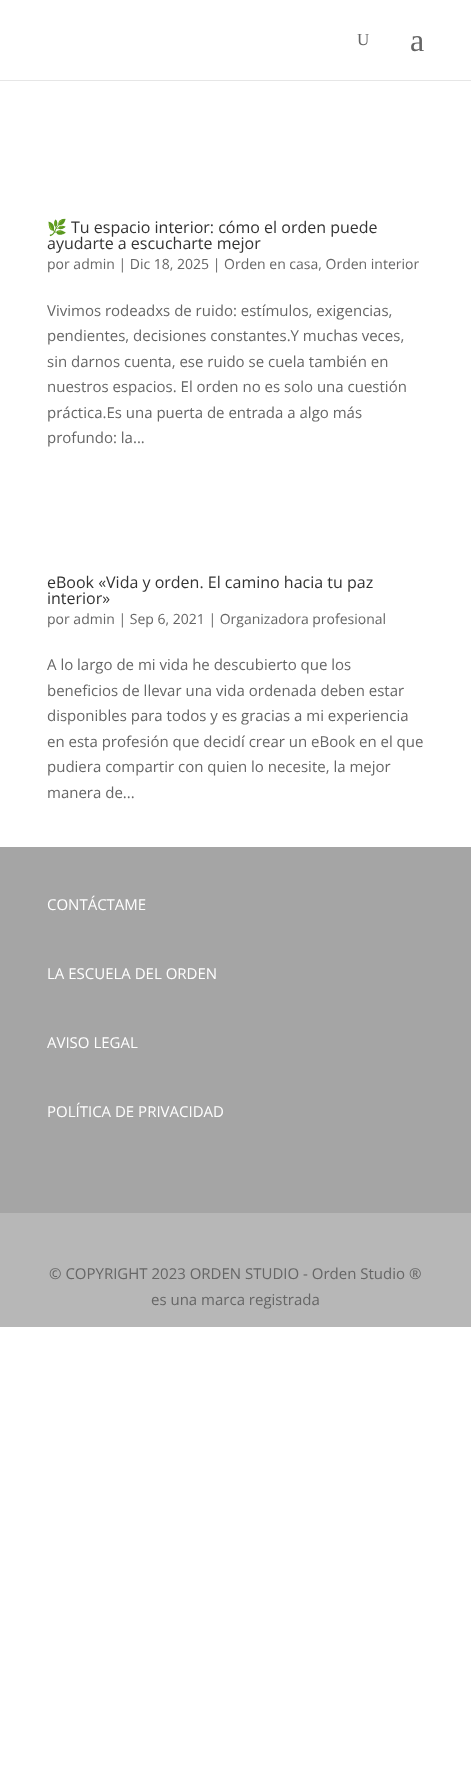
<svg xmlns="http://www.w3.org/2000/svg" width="471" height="1773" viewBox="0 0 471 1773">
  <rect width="100%" height="100%" fill="#ffffff"/>
  <rect x="0" y="80" width="471" height="1" fill="#e6e6e6"/>
  <text x="357" y="45" font-family="Liberation Serif" font-size="17" fill="#666666">U</text>
  <text x="410" y="51" font-family="Liberation Serif" font-size="32" fill="#666666">a</text>
  <text x="47" y="233" font-family="Noto Color Emoji" font-size="16" fill="#333333">🌿</text>
  <text x="71" y="233" font-family="Open Sans" font-size="16" fill="#333333">Tu espacio interior: cómo el orden puede</text>
  <text x="47" y="249" font-family="Open Sans" font-size="16" fill="#333333">ayudarte a escucharte mejor</text>
  <text x="47" y="269" font-family="Open Sans" font-size="14" fill="#666666">por admin | Dic 18, 2025 | Orden en casa, Orden interior</text>
  <text x="47" y="316" font-family="Open Sans" font-size="15" fill="#666666">Vivimos rodeadxs de ruido: estímulos, exigencias,</text>
  <text x="47" y="341" font-family="Open Sans" font-size="15" fill="#666666">pendientes, decisiones constantes.Y muchas veces,</text>
  <text x="47" y="367" font-family="Open Sans" font-size="15" fill="#666666">sin darnos cuenta, ese ruido se cuela también en</text>
  <text x="47" y="392" font-family="Open Sans" font-size="15" fill="#666666">nuestros espacios. El orden no es solo una cuestión</text>
  <text x="47" y="418" font-family="Open Sans" font-size="15" fill="#666666">práctica.Es una puerta de entrada a algo más</text>
  <text x="47" y="443" font-family="Open Sans" font-size="15" fill="#666666">profundo: la...</text>
  <text x="47" y="588" font-family="Open Sans" font-size="16" fill="#333333">eBook «Vida y orden. El camino hacia tu paz</text>
  <text x="47" y="604" font-family="Open Sans" font-size="16" fill="#333333">interior»</text>
  <text x="47" y="624" font-family="Open Sans" font-size="14" fill="#666666">por admin | Sep 6, 2021 | Organizadora profesional</text>
  <text x="47" y="670" font-family="Open Sans" font-size="15" fill="#666666">A lo largo de mi vida he descubierto que los</text>
  <text x="47" y="696" font-family="Open Sans" font-size="15" fill="#666666">beneficios de llevar una vida ordenada deben estar</text>
  <text x="47" y="721" font-family="Open Sans" font-size="15" fill="#666666">disponibles para todos y es gracias a mi experiencia</text>
  <text x="47" y="747" font-family="Open Sans" font-size="15" fill="#666666">en esta profesión que decidí crear un eBook en el que</text>
  <text x="47" y="772" font-family="Open Sans" font-size="15" fill="#666666">pudiera compartir con quien lo necesite, la mejor</text>
  <text x="47" y="798" font-family="Open Sans" font-size="15" fill="#666666">manera de...</text>
  <rect x="0" y="847" width="471" height="366" fill="#a5a5a5"/>
  <text x="47" y="910" font-family="Open Sans" font-size="15" fill="#ffffff">CONTÁCTAME</text>
  <text x="47" y="979" font-family="Open Sans" font-size="15" fill="#ffffff">LA ESCUELA DEL ORDEN</text>
  <text x="47" y="1048" font-family="Open Sans" font-size="15" fill="#ffffff">AVISO LEGAL</text>
  <text x="47" y="1117" font-family="Open Sans" font-size="15" fill="#ffffff">POLÍTICA DE PRIVACIDAD</text>
  <rect x="0" y="1213" width="471" height="114" fill="#b7b7b7"/>
  <text x="49" y="1279" font-family="Open Sans" font-size="15" fill="#666666">© COPYRIGHT 2023 ORDEN STUDIO - Orden Studio ®</text>
  <text x="151" y="1305" font-family="Open Sans" font-size="15" fill="#666666">es una marca registrada</text>
</svg>
